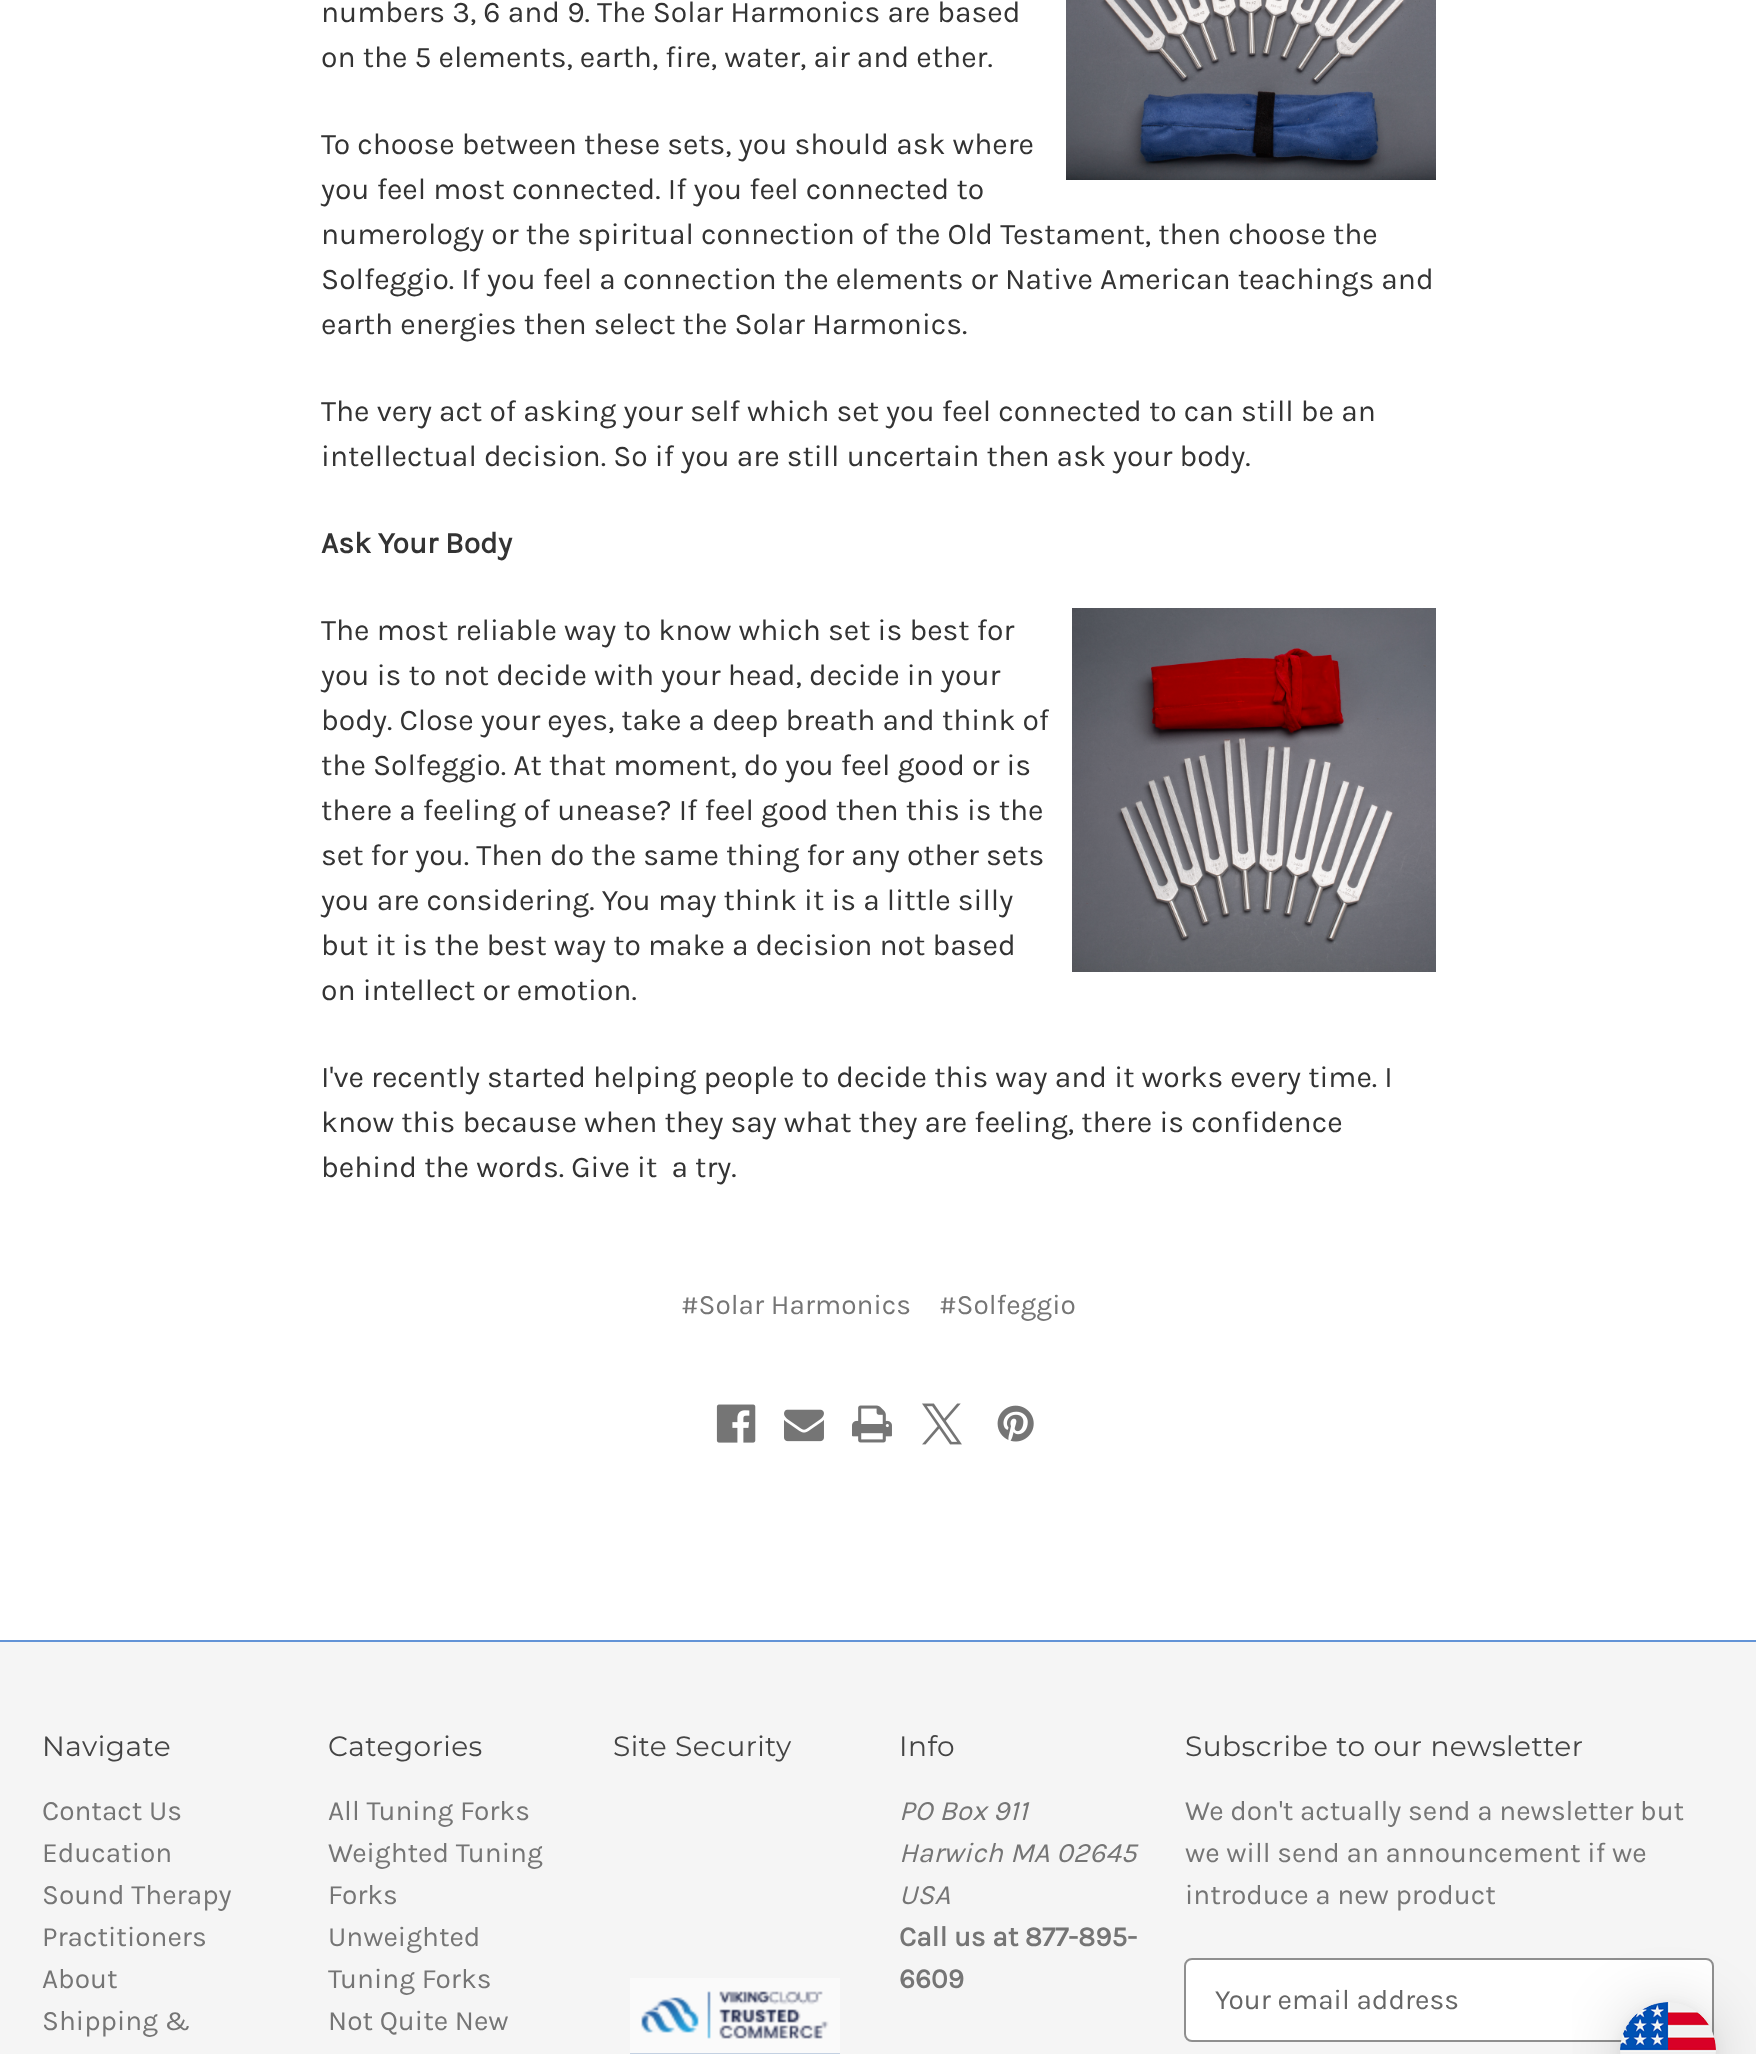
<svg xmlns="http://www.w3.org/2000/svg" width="1756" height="2054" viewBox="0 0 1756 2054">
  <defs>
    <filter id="blur1" x="-50%" y="-200%" width="200%" height="500%"><feGaussianBlur stdDeviation="32"/></filter>
    <filter id="blur2" x="-50%" y="-200%" width="200%" height="500%"><feGaussianBlur stdDeviation="6"/></filter>
  </defs>
  <rect width="100%" height="100%" fill="#ffffff"/>
  <text x="321" y="22" font-family="Karla" font-size="30" fill="#333333">numbers 3, 6 and 9. The Solar Harmonics are based</text>
  <text x="321" y="67" font-family="Karla" font-size="30" fill="#333333">on the 5 elements, earth, fire, water, air and ether.</text>
  <image x="1066" y="0" width="370" height="180" href="img1.png"/>
  <text x="321" y="154" font-family="Karla" font-size="30" fill="#333333">To choose between these sets, you should ask where</text>
  <text x="321" y="199" font-family="Karla" font-size="30" fill="#333333">you feel most connected. If you feel connected to</text>
  <text x="321" y="244" font-family="Karla" font-size="30" fill="#333333">numerology or the spiritual connection of the Old Testament, then choose the</text>
  <text x="321" y="289" font-family="Karla" font-size="30" fill="#333333">Solfeggio. If you feel a connection the elements or Native American teachings and</text>
  <text x="321" y="334" font-family="Karla" font-size="30" fill="#333333">earth energies then select the Solar Harmonics.</text>
  <text x="321" y="421" font-family="Karla" font-size="30" fill="#333333">The very act of asking your self which set you feel connected to can still be an</text>
  <text x="321" y="466" font-family="Karla" font-size="30" fill="#333333">intellectual decision. So if you are still uncertain then ask your body.</text>
  <text x="321" y="553" font-family="Karla" font-size="30" font-weight="bold" fill="#333333">Ask Your Body</text>
  <text x="321" y="640" font-family="Karla" font-size="30" fill="#333333">The most reliable way to know which set is best for</text>
  <text x="321" y="685" font-family="Karla" font-size="30" fill="#333333">you is to not decide with your head, decide in your</text>
  <text x="321" y="730" font-family="Karla" font-size="30" fill="#333333">body. Close your eyes, take a deep breath and think of</text>
  <text x="321" y="775" font-family="Karla" font-size="30" fill="#333333">the Solfeggio. At that moment, do you feel good or is</text>
  <text x="321" y="820" font-family="Karla" font-size="30" fill="#333333">there a feeling of unease? If feel good then this is the</text>
  <text x="321" y="865" font-family="Karla" font-size="30" fill="#333333">set for you. Then do the same thing for any other sets</text>
  <text x="321" y="910" font-family="Karla" font-size="30" fill="#333333">you are considering. You may think it is a little silly</text>
  <text x="321" y="955" font-family="Karla" font-size="30" fill="#333333">but it is the best way to make a decision not based</text>
  <text x="321" y="1000" font-family="Karla" font-size="30" fill="#333333">on intellect or emotion.</text>
  <image x="1072" y="608" width="364" height="364" href="img2.png"/>
  <text x="321" y="1087" font-family="Karla" font-size="30" fill="#333333">I've recently started helping people to decide this way and it works every time. I</text>
  <text x="321" y="1132" font-family="Karla" font-size="30" fill="#333333">know this because when they say what they are feeling, there is confidence</text>
  <text x="321" y="1177" font-family="Karla" font-size="30" fill="#333333" xml:space="preserve">behind the words. Give it  a try.</text>
  <text x="681" y="1314" font-family="Karla" font-size="28" fill="#757575">#Solar Harmonics</text>
  <text x="939" y="1314" font-family="Karla" font-size="28" fill="#757575">#Solfeggio</text>
  <image x="716" y="1404" width="40" height="39" href="img3.png"/>
  <image x="784" y="1409" width="40" height="33" href="img4.png"/>
  <image x="852" y="1405" width="40" height="38" href="img5.png"/>
  <image x="922" y="1403" width="40" height="42" href="img6.png"/>
  <image x="997" y="1405" width="37" height="37" href="img7.png"/>
  <rect x="0" y="1642" width="1756" height="412" fill="#f5f5f5"/>
  <rect x="0" y="1640" width="1756" height="2" fill="#6293d6"/>
  <text x="42" y="1756" font-family="Montserrat" font-size="28" letter-spacing="0.5" fill="#444444">Navigate</text>
  <text x="42" y="1820" font-family="Karla" font-size="28" fill="#757575">Contact Us</text>
  <text x="42" y="1862" font-family="Karla" font-size="28" fill="#757575">Education</text>
  <text x="42" y="1904" font-family="Karla" font-size="28" fill="#757575">Sound Therapy</text>
  <text x="42" y="1946" font-family="Karla" font-size="28" fill="#757575">Practitioners</text>
  <text x="42" y="1988" font-family="Karla" font-size="28" fill="#757575">About</text>
  <text x="42" y="2030" font-family="Karla" font-size="28" fill="#757575">Shipping &amp;</text>
  <text x="328" y="1756" font-family="Montserrat" font-size="28" letter-spacing="0.5" fill="#444444">Categories</text>
  <text x="328" y="1820" font-family="Karla" font-size="28" fill="#757575">All Tuning Forks</text>
  <text x="328" y="1862" font-family="Karla" font-size="28" fill="#757575">Weighted Tuning</text>
  <text x="328" y="1904" font-family="Karla" font-size="28" fill="#757575">Forks</text>
  <text x="328" y="1946" font-family="Karla" font-size="28" fill="#757575">Unweighted</text>
  <text x="328" y="1988" font-family="Karla" font-size="28" fill="#757575">Tuning Forks</text>
  <text x="328" y="2030" font-family="Karla" font-size="28" fill="#757575">Not Quite New</text>
  <text x="613" y="1756" font-family="Montserrat" font-size="28" letter-spacing="0.5" fill="#444444">Site Security</text>
  <image x="630" y="1978" width="210" height="76" href="img8.png"/>
  <text x="899" y="1756" font-family="Montserrat" font-size="28" letter-spacing="0.5" fill="#444444">Info</text>
  <text x="899" y="1820" font-family="Karla" font-size="28" font-style="italic" fill="#757575">PO Box 911</text>
  <text x="899" y="1862" font-family="Karla" font-size="28" font-style="italic" fill="#757575">Harwich MA 02645</text>
  <text x="899" y="1904" font-family="Karla" font-size="28" font-style="italic" fill="#757575">USA</text>
  <text x="899" y="1946" font-family="Karla" font-size="28" font-weight="bold" fill="#757575">Call us at 877-895-</text>
  <text x="899" y="1988" font-family="Karla" font-size="28" font-weight="bold" fill="#757575">6609</text>
  <text x="1185" y="1756" font-family="Montserrat" font-size="28" letter-spacing="0.5" fill="#444444">Subscribe to our newsletter</text>
  <text x="1185" y="1820" font-family="Karla" font-size="28" fill="#757575">We don't actually send a newsletter but</text>
  <text x="1185" y="1862" font-family="Karla" font-size="28" fill="#757575">we will send an announcement if we</text>
  <text x="1185" y="1904" font-family="Karla" font-size="28" fill="#757575">introduce a new product</text>
  <rect x="1185" y="1959" width="528" height="82" rx="7" fill="#ffffff" stroke="#8f8f8f" stroke-width="2"/>
  <text x="1215" y="2009" font-family="Karla" font-size="28" fill="#666666">Your email address</text>
  <rect x="1620" y="2006" width="96" height="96" rx="48" fill="#000000" fill-opacity="0.16" filter="url(#blur1)"/>
  <rect x="1620" y="2004" width="96" height="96" rx="48" fill="#000000" fill-opacity="0.06" filter="url(#blur2)"/>
  <image x="1620" y="2002" width="96" height="52" href="img9.png"/>
</svg>
